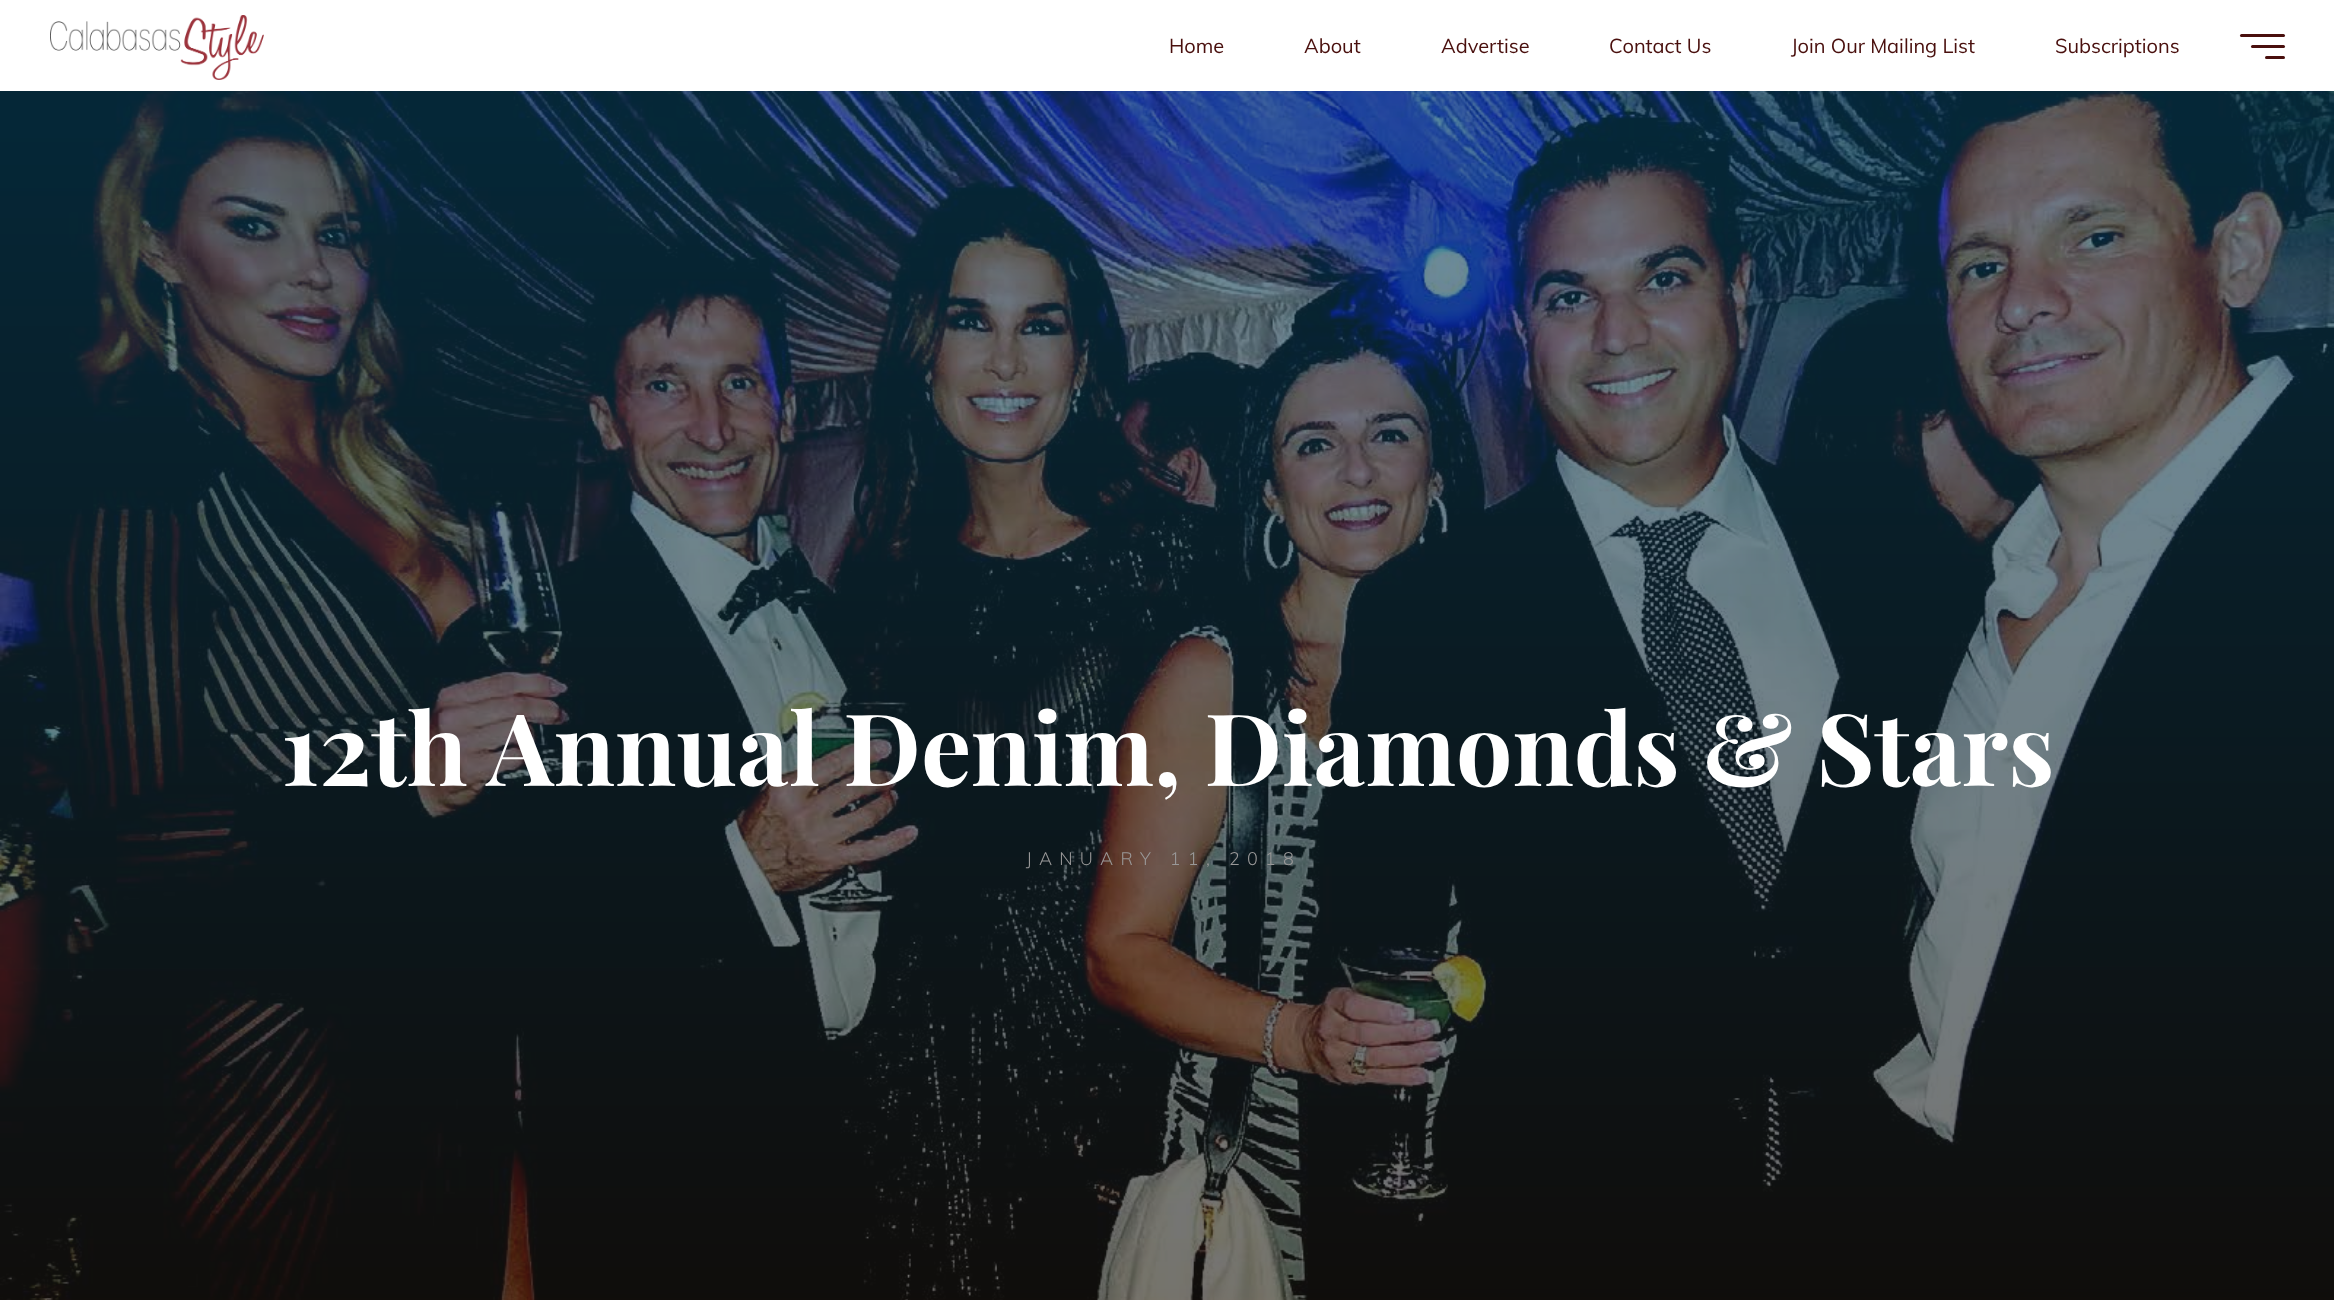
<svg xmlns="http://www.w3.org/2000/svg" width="2334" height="1300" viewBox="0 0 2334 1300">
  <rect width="100%" height="100%" fill="#ffffff"/>
  <image x="50" y="15" width="214" height="65" href="img1.png"/>
  <text x="1169" y="53" font-family="Muli" font-size="20" fill="#490f0d">Home</text>
  <text x="1304" y="53" font-family="Muli" font-size="20" fill="#490f0d">About</text>
  <text x="1441" y="53" font-family="Muli" font-size="20" fill="#490f0d">Advertise</text>
  <text x="1609" y="53" font-family="Muli" font-size="20" fill="#490f0d">Contact Us</text>
  <text x="1791" y="53" font-family="Muli" font-size="20" fill="#490f0d">Join Our Mailing List</text>
  <text x="2055" y="53" font-family="Muli" font-size="20" fill="#490f0d">Subscriptions</text>
  <rect x="2240" y="34" width="45" height="3" rx="1.5" fill="#490f0d"/>
  <rect x="2251" y="45" width="34" height="3" rx="1.5" fill="#490f0d"/>
  <rect x="2265" y="56" width="20" height="3" rx="1.5" fill="#490f0d"/>
  <image x="0" y="91" width="2334" height="1209" href="img2.png"/>
  <text x="281" y="786" font-family="Playfair Display" font-size="100" font-weight="bold" fill="#ffffff">12th Annual Denim, Diamonds &amp; Stars</text>
  <text x="1026" y="865" font-family="Muli" font-size="18" font-weight="300" letter-spacing="7.25" fill="#999898">JANUARY 11, 2018</text>
</svg>
